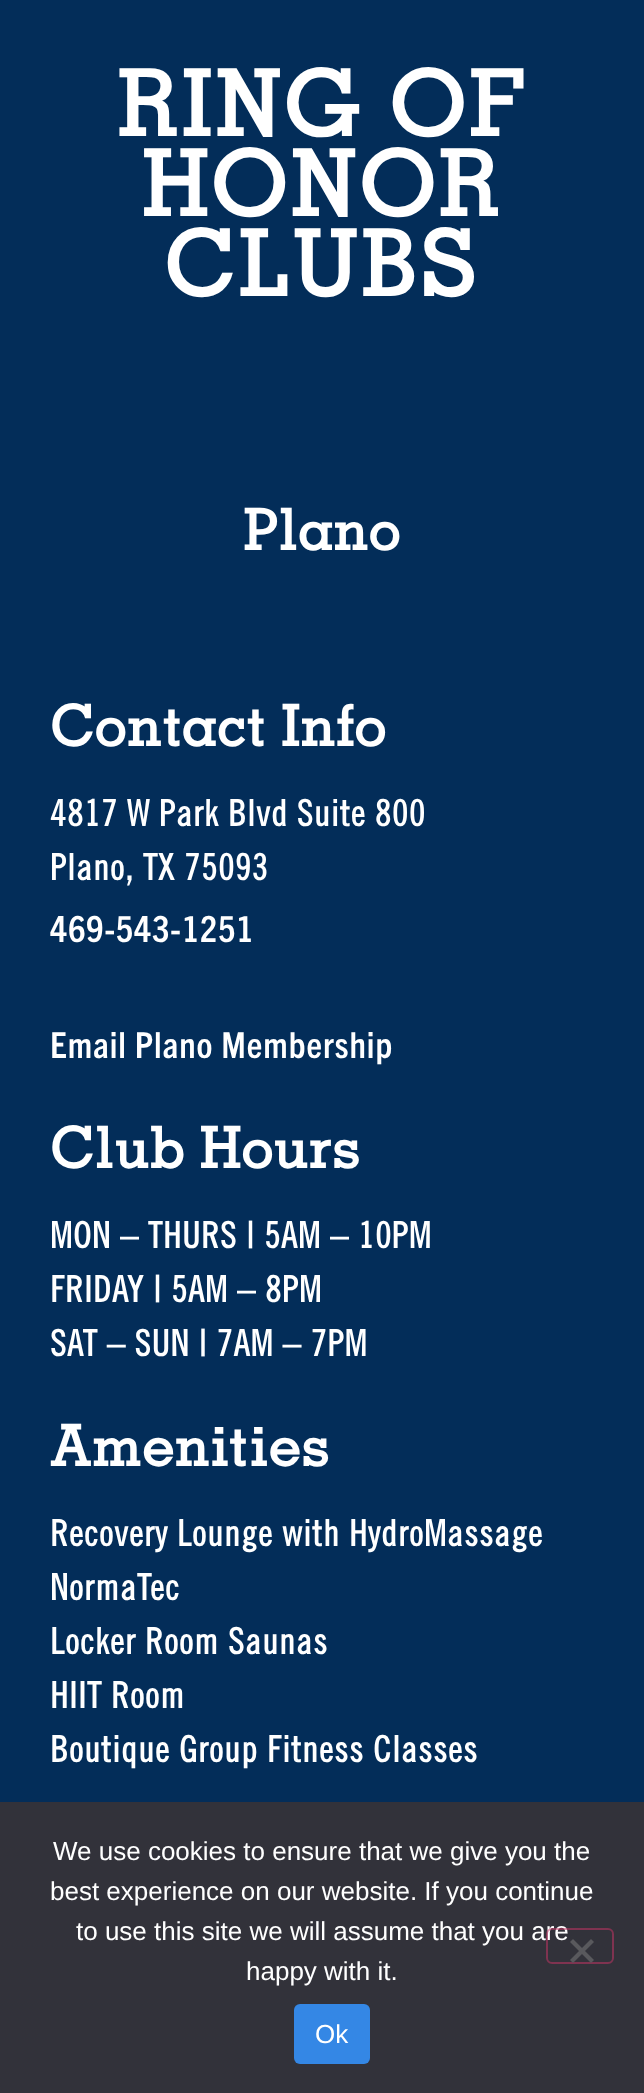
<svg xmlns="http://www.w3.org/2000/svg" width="644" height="2093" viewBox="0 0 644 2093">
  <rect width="100%" height="100%" fill="#032d59"/>
  <text x="117" y="136" font-family="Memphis" font-size="90" font-weight="bold" letter-spacing="4" fill="#ffffff">RING OF</text>
  <text x="142" y="216" font-family="Memphis" font-size="90" font-weight="bold" letter-spacing="4" fill="#ffffff">HONOR</text>
  <text x="164" y="296" font-family="Memphis" font-size="90" font-weight="bold" letter-spacing="4" fill="#ffffff">CLUBS</text>
  <text x="243" y="550" font-family="Memphis" font-size="56" font-weight="bold" letter-spacing="1" fill="#ffffff">Plano</text>
  <text x="50" y="746" font-family="Memphis" font-size="56" font-weight="bold" letter-spacing="1" fill="#ffffff">Contact Info</text>
  <text x="50" y="826" font-family="Trade Gothic" font-size="36" font-weight="bold" letter-spacing="1" fill="#ffffff">4817 W Park Blvd Suite 800</text>
  <text x="50" y="880" font-family="Trade Gothic" font-size="36" font-weight="bold" letter-spacing="1" fill="#ffffff">Plano, TX 75093</text>
  <text x="50" y="942" font-family="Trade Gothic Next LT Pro" font-size="36" font-weight="bold" letter-spacing="1" fill="#ffffff">469-543-1251</text>
  <text x="50" y="1058" font-family="Trade Gothic Next LT Pro" font-size="36" font-weight="bold" letter-spacing="1" fill="#ffffff">Email Plano Membership</text>
  <text x="50" y="1168" font-family="Memphis" font-size="56" font-weight="bold" letter-spacing="1" fill="#ffffff">Club Hours</text>
  <text x="50" y="1248" font-family="Trade Gothic" font-size="36" font-weight="bold" letter-spacing="1" fill="#ffffff">MON – THURS | 5AM – 10PM</text>
  <text x="50" y="1302" font-family="Trade Gothic" font-size="36" font-weight="bold" letter-spacing="1" fill="#ffffff">FRIDAY | 5AM – 8PM</text>
  <text x="50" y="1356" font-family="Trade Gothic" font-size="36" font-weight="bold" letter-spacing="1" fill="#ffffff">SAT – SUN | 7AM – 7PM</text>
  <text x="50" y="1466" font-family="Memphis" font-size="56" font-weight="bold" letter-spacing="1" fill="#ffffff">Amenities</text>
  <text x="50" y="1546" font-family="Trade Gothic" font-size="36" font-weight="bold" letter-spacing="1" fill="#ffffff">Recovery Lounge with HydroMassage</text>
  <text x="50" y="1600" font-family="Trade Gothic" font-size="36" font-weight="bold" letter-spacing="1" fill="#ffffff">NormaTec</text>
  <text x="50" y="1654" font-family="Trade Gothic" font-size="36" font-weight="bold" letter-spacing="1" fill="#ffffff">Locker Room Saunas</text>
  <text x="50" y="1708" font-family="Trade Gothic" font-size="36" font-weight="bold" letter-spacing="1" fill="#ffffff">HIIT Room</text>
  <text x="50" y="1762" font-family="Trade Gothic" font-size="36" font-weight="bold" letter-spacing="1" fill="#ffffff">Boutique Group Fitness Classes</text>
  <rect x="0" y="1802" width="644" height="291" fill="#32323a"/>
  <text x="53" y="1860" font-family="Liberation Sans" font-size="26" fill="#ffffff">We use cookies to ensure that we give you the</text>
  <text x="50" y="1900" font-family="Liberation Sans" font-size="26" fill="#ffffff">best experience on our website. If you continue</text>
  <text x="76" y="1940" font-family="Liberation Sans" font-size="26" fill="#ffffff">to use this site we will assume that you are</text>
  <text x="246" y="1980" font-family="Liberation Sans" font-size="26" fill="#ffffff">happy with it.</text>
  <rect x="547" y="1929" width="66" height="34" rx="5" fill="none" stroke="#cc3366" stroke-opacity="0.5" stroke-width="2"/>
  <path d="M591 1939L594 1942L573 1963L570 1960Z" fill="#59595d"/>
  <path d="M570 1942L573 1939L594 1960L591 1963Z" fill="#59595d"/>
  <rect x="294" y="2004" width="76" height="60" rx="6" fill="#3487e5"/>
  <text x="315" y="2043" font-family="Liberation Sans" font-size="26" fill="#ffffff">Ok</text>
</svg>
